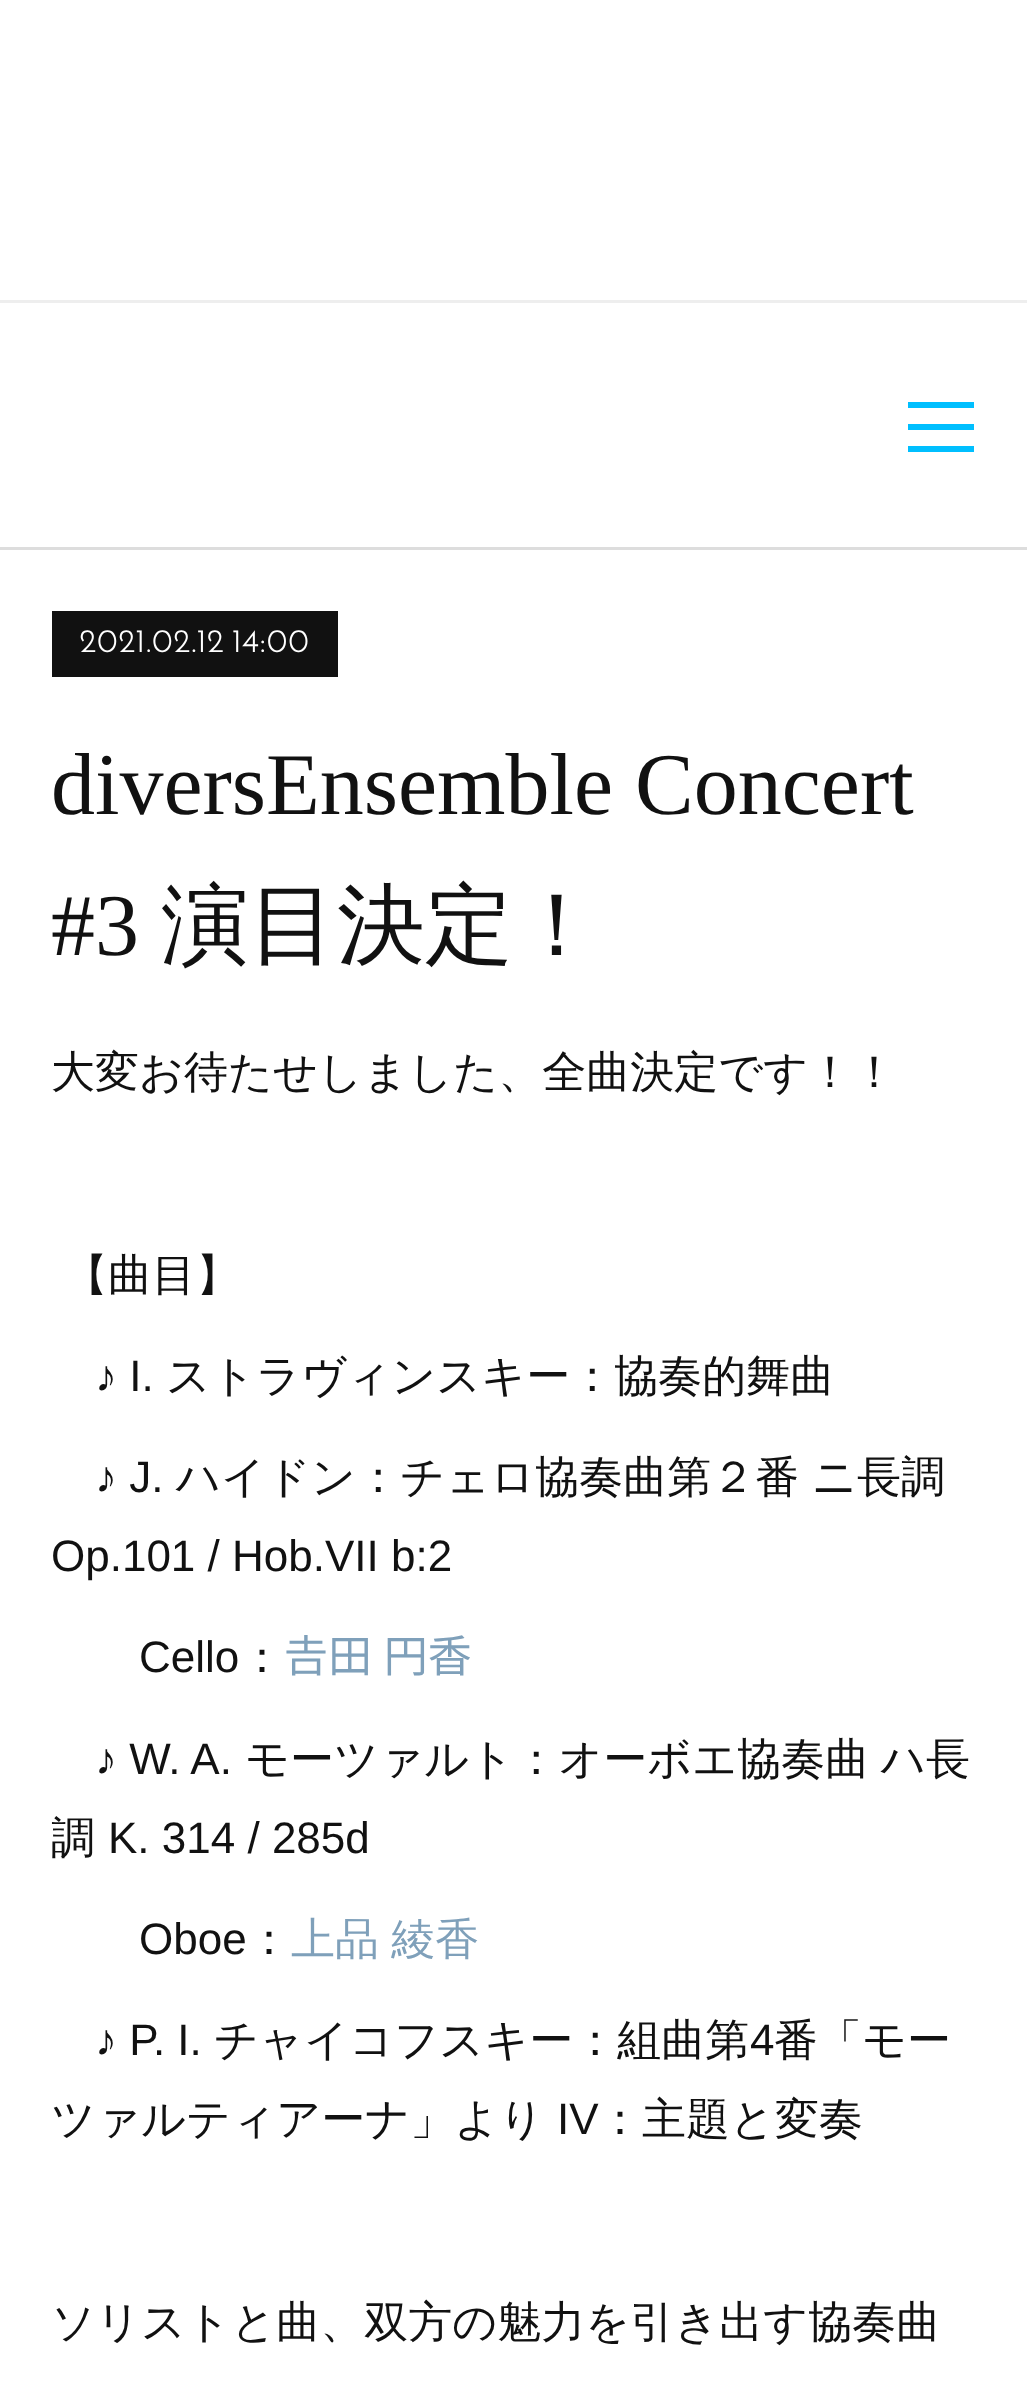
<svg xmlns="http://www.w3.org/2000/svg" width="1027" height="2395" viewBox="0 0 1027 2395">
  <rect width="100%" height="100%" fill="#ffffff"/>
  <rect x="0" y="300" width="1027" height="3" fill="#eeeeee"/>
  <rect x="0" y="547" width="1027" height="3" fill="#dddddd"/>
  <rect x="908" y="402" width="66" height="6" fill="#00bfff"/>
  <rect x="908" y="424" width="66" height="6" fill="#00bfff"/>
  <rect x="908" y="446" width="66" height="6" fill="#00bfff"/>
  <rect x="52" y="611" width="286" height="66" fill="#111111"/>
  <text x="79" y="652" font-family="Josefin Sans" font-size="33" fill="#ffffff">2021.02.12 14:00</text>
  <text x="51" y="814" font-family="Liberation Serif" font-size="88" fill="#111111">diversEnsemble Concert</text>
  <text x="51" y="955" font-family="Liberation Serif" font-size="88" fill="#111111">#3</text>
  <text x="161" y="955" font-family="WenQuanYi Zen Hei" font-size="88" font-weight="500" fill="#111111">演目決定！</text>
  <text x="51" y="1087" font-family="WenQuanYi Zen Hei" font-size="44" font-weight="500" fill="#111111">大変お待たせしました、全曲決定です！！</text>
  <text x="64" y="1290" font-family="WenQuanYi Zen Hei" font-size="44" font-weight="500" fill="#111111">【曲目】</text>
  <text x="95" y="1391" font-family="Liberation Sans" font-size="44" fill="#111111">♪ I.</text>
  <text x="166" y="1391" font-family="WenQuanYi Zen Hei" font-size="44" font-weight="500" fill="#111111">ストラヴィンスキー：協奏的舞曲</text>
  <text x="95" y="1492" font-family="Liberation Sans" font-size="44" fill="#111111">♪ J.</text>
  <text x="176" y="1492" font-family="WenQuanYi Zen Hei" font-size="44" font-weight="500" fill="#111111">ハイドン：チェロ協奏曲第２番</text>
  <text x="812" y="1492" font-family="WenQuanYi Zen Hei" font-size="44" font-weight="500" fill="#111111">ニ長調</text>
  <text x="51" y="1571" font-family="Liberation Sans" font-size="44" fill="#111111">Op.101 / Hob.VII b:2</text>
  <text x="139" y="1672" font-family="Liberation Sans" font-size="44" fill="#111111">Cello</text>
  <text x="240" y="1672" font-family="WenQuanYi Zen Hei" font-size="44" font-weight="500" fill="#111111">：</text>
  <text x="284" y="1672" word-spacing="2" font-family="Noto Sans CJK JP" font-size="44" fill="#7fa0ba">𠮷田 円香</text>
  <text x="95" y="1774" font-family="Liberation Sans" font-size="44" fill="#111111">♪ W. A.</text>
  <text x="245" y="1774" font-family="WenQuanYi Zen Hei" font-size="44" font-weight="500" fill="#111111">モーツァルト：オーボエ協奏曲</text>
  <text x="881" y="1774" font-family="WenQuanYi Zen Hei" font-size="44" font-weight="500" fill="#111111">ハ長</text>
  <text x="51" y="1853" font-family="WenQuanYi Zen Hei" font-size="44" font-weight="500" fill="#111111">調</text>
  <text x="108" y="1853" font-family="Liberation Sans" font-size="44" fill="#111111">K. 314 / 285d</text>
  <text x="139" y="1954" font-family="Liberation Sans" font-size="44" fill="#111111">Oboe</text>
  <text x="247" y="1954" font-family="WenQuanYi Zen Hei" font-size="44" font-weight="500" fill="#111111">：</text>
  <text x="291" y="1954" word-spacing="-1" font-family="WenQuanYi Zen Hei" font-size="44" font-weight="500" fill="#7fa0ba">上品 綾香</text>
  <text x="95" y="2055" font-family="Liberation Sans" font-size="44" fill="#111111">♪ P. I.</text>
  <text x="214" y="2055" font-family="WenQuanYi Zen Hei" font-size="44" font-weight="500" fill="#111111">チャイコフスキー：組曲第</text>
  <text x="750" y="2055" font-family="Liberation Sans" font-size="44" fill="#111111">4</text>
  <text x="774" y="2055" font-family="WenQuanYi Zen Hei" font-size="44" font-weight="500" fill="#111111">番「モー</text>
  <text x="51" y="2134" font-family="WenQuanYi Zen Hei" font-size="44" font-weight="500" fill="#111111">ツァルティアーナ」より</text>
  <text x="557" y="2134" font-family="Liberation Sans" font-size="44" fill="#111111">IV</text>
  <text x="598" y="2134" font-family="WenQuanYi Zen Hei" font-size="44" font-weight="500" fill="#111111">：主題と変奏</text>
  <text x="51" y="2337" font-family="WenQuanYi Zen Hei" font-size="44" font-weight="500" fill="#111111">ソリストと曲、双方の魅力を引き出す協奏曲</text>
</svg>
